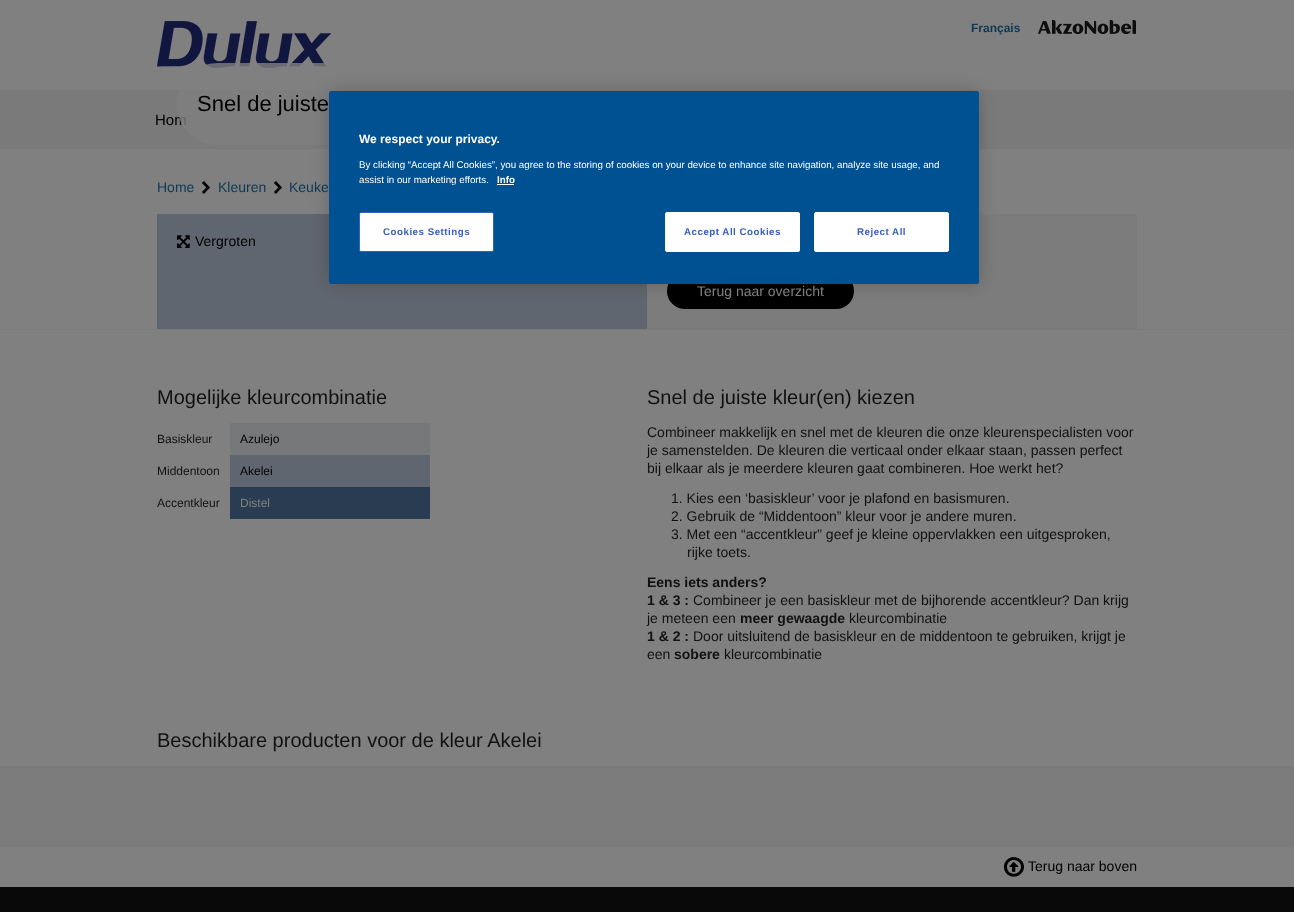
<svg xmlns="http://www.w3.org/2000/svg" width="1294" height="912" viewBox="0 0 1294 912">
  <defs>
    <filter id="blur1" x="-50%" y="-200%" width="200%" height="500%"><feGaussianBlur stdDeviation="9"/></filter>
  </defs>
  <rect width="100%" height="100%" fill="#808080"/>
  <image x="157" y="21" width="174" height="47" href="img1.png"/>
  <text x="971" y="32" font-family="Liberation Sans" font-size="12" font-weight="bold" fill="#0d3954">Français</text>
  <image x="1038" y="20" width="98" height="14" href="img2.png"/>
  <rect x="0" y="90" width="1294" height="59" fill="#7a7a7a"/>
  <text x="155" y="125" font-family="Liberation Sans" font-size="15" fill="#000000">Hom</text>
  <rect x="177" y="63" width="296" height="82" rx="40" fill="#808080" fill-opacity="0.8"/>
  <text x="197" y="111" font-family="Liberation Sans" font-size="22" fill="#000000">Snel de juiste</text>
  <rect x="157" y="214" width="490" height="115" fill="#60666f"/>
  <rect x="647" y="214" width="490" height="115" fill="#7b7b7b"/>
  <rect x="667" y="273" width="187" height="36" rx="18" fill="#000000"/>
  <rect x="329" y="91" width="650" height="193" rx="2.5" fill="#000000" fill-opacity="0.2" filter="url(#blur1)"/>
  <rect x="329" y="91" width="650" height="193" rx="2.5" fill="#005192"/>
  <text x="359" y="143" font-family="Liberation Sans" font-size="12" font-weight="bold" fill="#ffffff">We respect your privacy.</text>
  <text x="359" y="168" font-family="Liberation Sans" font-size="9.75" fill="#ffffff">By clicking “Accept All Cookies”, you agree to the storing of cookies on your device to enhance site navigation, analyze site usage, and</text>
  <text x="359" y="183" font-family="Liberation Sans" font-size="9.75" fill="#ffffff">assist in our marketing efforts.</text>
  <text x="497" y="183" font-family="Liberation Sans" font-size="9.75" font-weight="bold" fill="#ffffff">Info</text>
  <rect x="497" y="184" width="17" height="1" fill="#fafbff"/>
  <rect x="359.5" y="212.5" width="134" height="39" rx="1.5" fill="#ffffff" stroke="#3860be"/>
  <text x="383" y="235" font-family="Liberation Sans" font-size="9.75" font-weight="bold" letter-spacing="0.5" fill="#3860be">Cookies Settings</text>
  <rect x="665.5" y="212.5" width="134" height="39" rx="1.5" fill="#ffffff" stroke="#ffffff"/>
  <text x="684" y="235" font-family="Liberation Sans" font-size="9.75" font-weight="bold" letter-spacing="0.5" fill="#3860be">Accept All Cookies</text>
  <rect x="814.5" y="212.5" width="134" height="39" rx="1.5" fill="#ffffff" stroke="#ffffff"/>
  <text x="857" y="235" font-family="Liberation Sans" font-size="9.75" font-weight="bold" letter-spacing="0.5" fill="#3860be">Reject All</text>
  <text x="157" y="192" font-family="Liberation Sans" font-size="14" fill="#0d3954">Home</text>
  <image x="202" y="181" width="8" height="13" href="img3.png"/>
  <text x="218" y="192" font-family="Liberation Sans" font-size="14" fill="#0d3954">Kleuren</text>
  <image x="274" y="181" width="8" height="13" href="img3.png"/>
  <text x="289" y="192" font-family="Liberation Sans" font-size="14" fill="#0d3954">Keuke</text>
  <image x="177" y="235" width="13" height="13" href="img4.png"/>
  <text x="195" y="246" font-family="Liberation Sans" font-size="14" fill="#000000">Vergroten</text>
  <text x="697" y="296" font-family="Liberation Sans" font-size="14" fill="#808080">Terug naar overzicht</text>
  <rect x="0" y="329" width="1294" height="1" fill="#7b7b7b"/>
  <text x="157" y="404" font-family="Liberation Sans" font-size="20" fill="#111111">Mogelijke kleurcombinatie</text>
  <text x="157" y="443" font-family="Liberation Sans" font-size="12" fill="#111111">Basiskleur</text>
  <rect x="230" y="423" width="200" height="32" fill="#767879"/>
  <text x="240" y="443" font-family="Liberation Sans" font-size="12" fill="#000000">Azulejo</text>
  <text x="157" y="475" font-family="Liberation Sans" font-size="12" fill="#111111">Middentoon</text>
  <rect x="230" y="455" width="200" height="32" fill="#60666f"/>
  <text x="240" y="475" font-family="Liberation Sans" font-size="12" fill="#000000">Akelei</text>
  <text x="157" y="507" font-family="Liberation Sans" font-size="12" fill="#111111">Accentkleur</text>
  <rect x="230" y="487" width="200" height="32" fill="#293c51"/>
  <text x="240" y="507" font-family="Liberation Sans" font-size="12" fill="#808080">Distel</text>
  <text x="647" y="404" font-family="Liberation Sans" font-size="20" fill="#111111">Snel de juiste kleur(en) kiezen</text>
  <text x="647" y="437" font-family="Liberation Sans" font-size="14" fill="#111111">Combineer makkelijk en snel met de kleuren die onze kleurenspecialisten voor</text>
  <text x="647" y="455" font-family="Liberation Sans" font-size="14" fill="#111111">je samenstelden. De kleuren die verticaal onder elkaar staan, passen perfect</text>
  <text x="647" y="473" font-family="Liberation Sans" font-size="14" fill="#111111">bij elkaar als je meerdere kleuren gaat combineren. Hoe werkt het?</text>
  <text x="671" y="503" font-family="Liberation Sans" font-size="14" fill="#111111">1. Kies een ‘basiskleur’ voor je plafond en basismuren.</text>
  <text x="671" y="521" font-family="Liberation Sans" font-size="14" fill="#111111">2. Gebruik de “Middentoon” kleur voor je andere muren.</text>
  <text x="671" y="539" font-family="Liberation Sans" font-size="14" fill="#111111">3. Met een “accentkleur” geef je kleine oppervlakken een uitgesproken,</text>
  <text x="687" y="557" font-family="Liberation Sans" font-size="14" fill="#111111">rijke toets.</text>
  <text x="647" y="587" font-family="Liberation Sans" font-size="14" font-weight="bold" fill="#111111">Eens iets anders?</text>
  <text x="647" y="605" font-family="Liberation Sans" font-size="14" font-weight="bold" fill="#111111">1 &amp; 3 :</text>
  <text x="693" y="605" font-family="Liberation Sans" font-size="14" fill="#111111">Combineer je een basiskleur met de bijhorende accentkleur? Dan krijg</text>
  <text x="647" y="623" font-family="Liberation Sans" font-size="14" fill="#111111">je meteen een</text>
  <text x="740" y="623" font-family="Liberation Sans" font-size="14" font-weight="bold" fill="#111111">meer gewaagde</text>
  <text x="849" y="623" font-family="Liberation Sans" font-size="14" fill="#111111">kleurcombinatie</text>
  <text x="647" y="641" font-family="Liberation Sans" font-size="14" font-weight="bold" fill="#111111">1 &amp; 2 :</text>
  <text x="693" y="641" font-family="Liberation Sans" font-size="14" fill="#111111">Door uitsluitend de basiskleur en de middentoon te gebruiken, krijgt je</text>
  <text x="647" y="659" font-family="Liberation Sans" font-size="14" fill="#111111">een</text>
  <text x="674" y="659" font-family="Liberation Sans" font-size="14" font-weight="bold" fill="#111111">sobere</text>
  <text x="724" y="659" font-family="Liberation Sans" font-size="14" fill="#111111">kleurcombinatie</text>
  <text x="157" y="747" font-family="Liberation Sans" font-size="20" fill="#111111">Beschikbare producten voor de kleur Akelei</text>
  <rect x="0" y="766" width="1294" height="81" fill="#7b7b7b"/>
  <image x="1004" y="857" width="20" height="20" href="img5.png"/>
  <text x="1028" y="871" font-family="Liberation Sans" font-size="14" fill="#000000">Terug naar boven</text>
  <rect x="0" y="887" width="1294" height="25" fill="#090909"/>
</svg>
